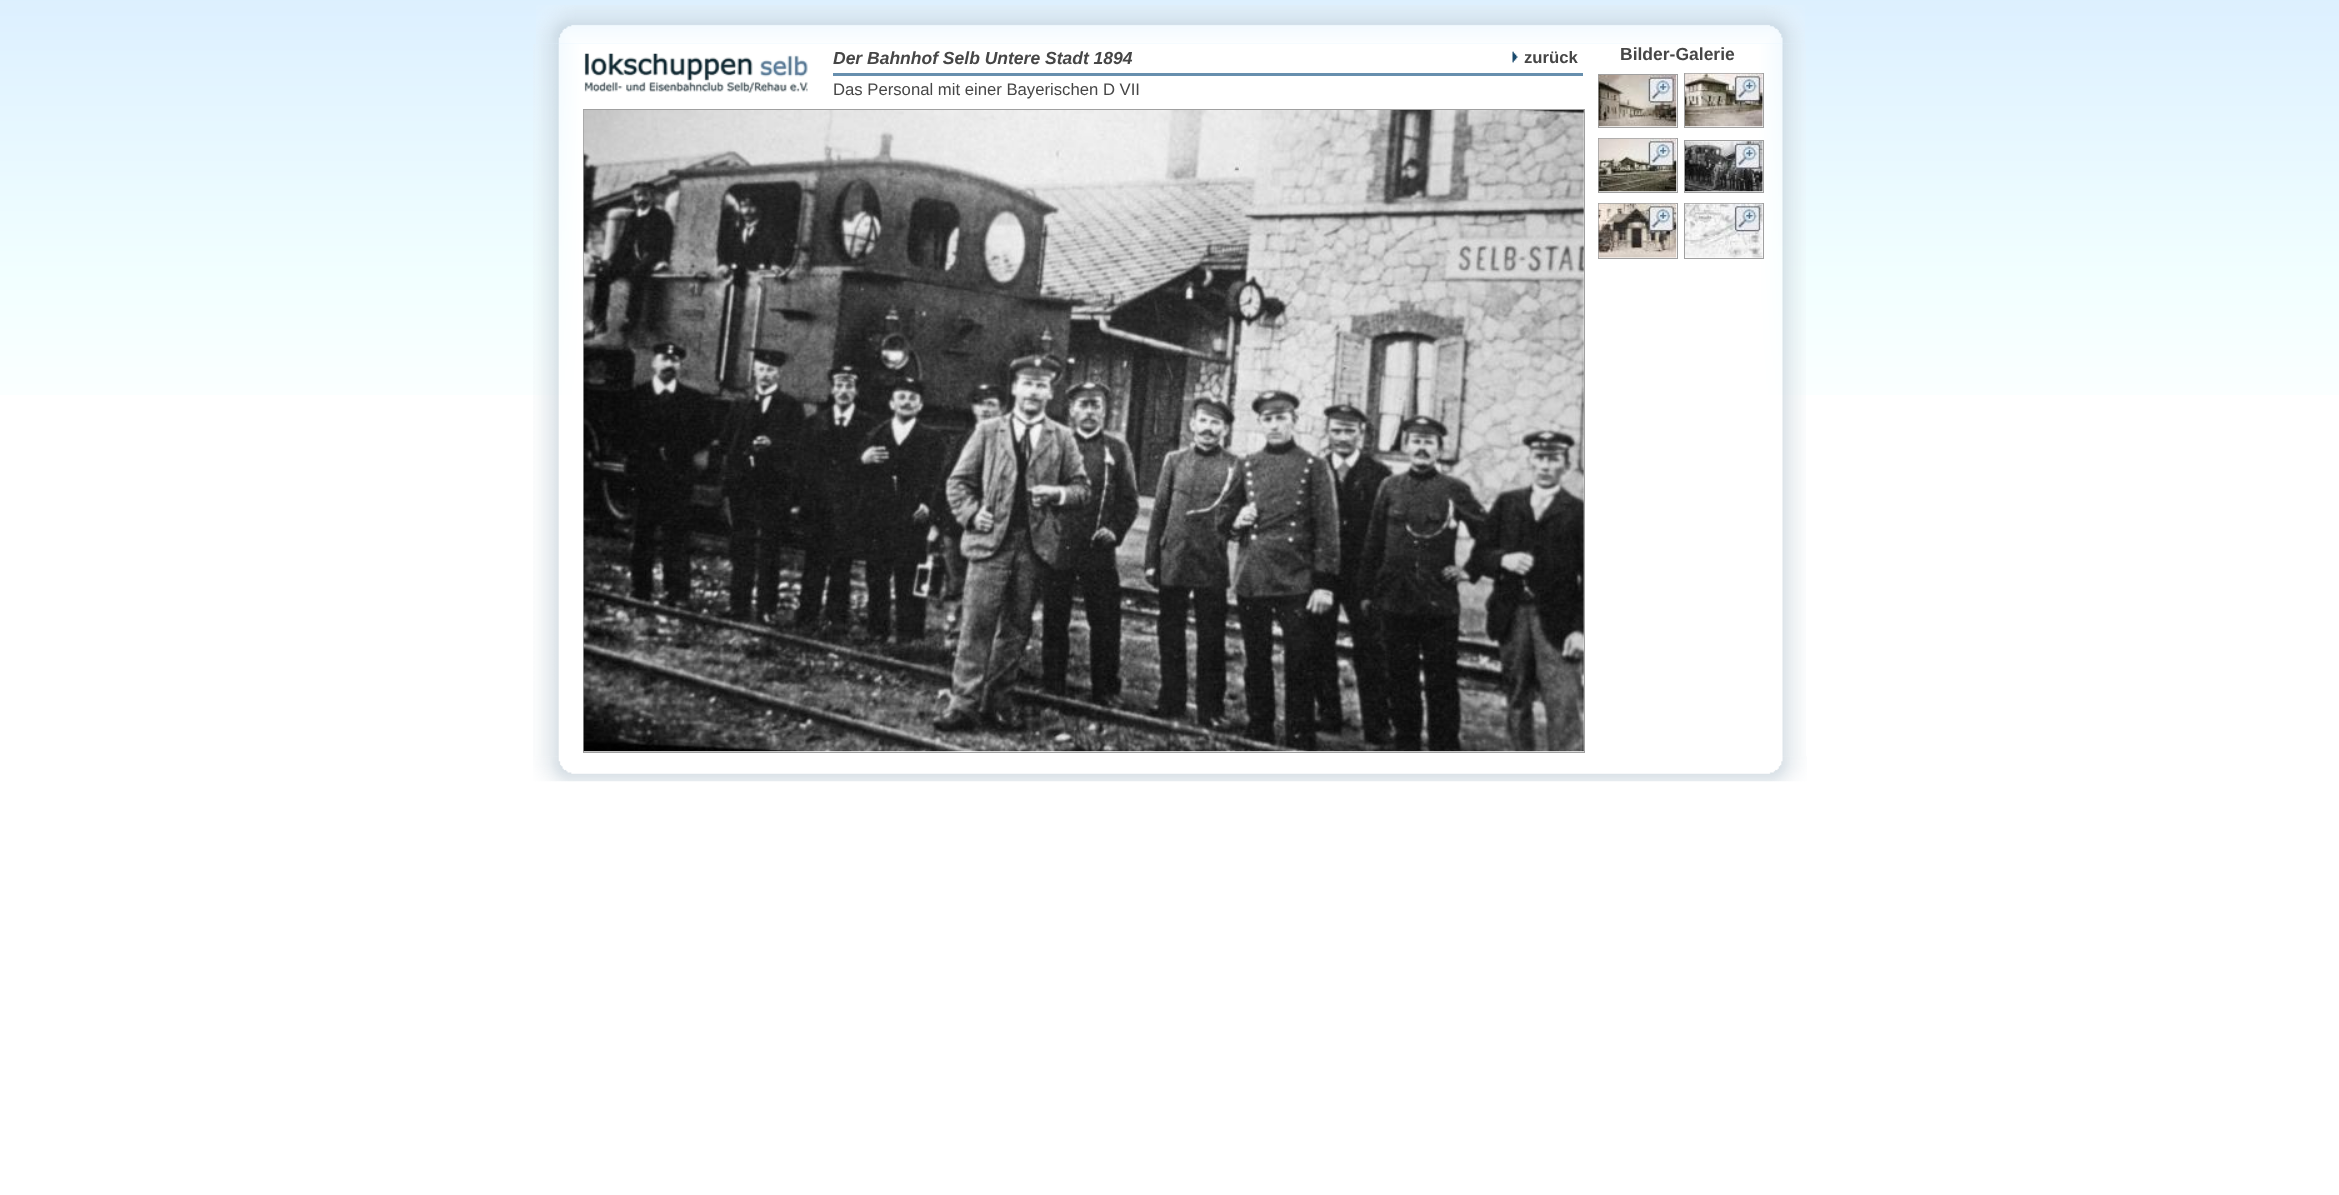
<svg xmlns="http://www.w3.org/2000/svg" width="2339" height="1195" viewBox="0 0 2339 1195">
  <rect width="100%" height="100%" fill="#ffffff"/>
  <image x="0" y="0" width="2339" height="395" href="img1.png"/>
  <image x="536" y="5" width="1269" height="39" href="img2.png"/>
  <image x="533" y="44" width="1273" height="713" href="img3.png"/>
  <image x="584" y="53" width="224" height="40" href="img4.png"/>
  <text x="833" y="64" font-family="Liberation Sans" font-size="17.5" font-weight="bold" font-style="italic" fill="#464646">Der Bahnhof Selb Untere Stadt 1894</text>
  <image x="1512" y="51" width="6" height="12" href="img5.png"/>
  <text x="1524" y="63" font-family="Liberation Sans" font-size="16.7" font-weight="bold" fill="#464646">zurück</text>
  <rect x="833" y="73" width="750" height="3" fill="#678fae"/>
  <text x="833" y="95" font-family="Liberation Sans" font-size="16.7" fill="#464646">Das Personal mit einer Bayerischen D VII</text>
  <rect x="583.5" y="109.5" width="1001" height="643" fill="none" stroke="#a0a0a0"/>
  <image x="583" y="110" width="1001" height="642" href="img6.png"/>
  <text x="1620" y="60" font-family="Liberation Sans" font-size="17.5" font-weight="bold" fill="#464646">Bilder-Galerie</text>
  <rect x="1684.5" y="73.5" width="79" height="54" fill="none" stroke="#a0a0a0"/>
  <rect x="1598.5" y="74.5" width="79" height="53" fill="none" stroke="#a0a0a0"/>
  <image x="1685" y="73" width="78" height="54" href="img7.png"/>
  <image x="1598" y="75" width="79" height="52" href="img8.png"/>
  <rect x="1598.5" y="138.5" width="79" height="54" fill="none" stroke="#a0a0a0"/>
  <image x="1598" y="138" width="79" height="54" href="img9.png"/>
  <rect x="1684.5" y="140.5" width="79" height="52" fill="none" stroke="#a0a0a0"/>
  <image x="1685" y="141" width="78" height="51" href="img10.png"/>
  <rect x="1598.5" y="203.5" width="79" height="55" fill="none" stroke="#a0a0a0"/>
  <image x="1598" y="203" width="79" height="55" href="img11.png"/>
  <rect x="1684.5" y="203.5" width="79" height="55" fill="none" stroke="#a0a0a0"/>
  <image x="1685" y="203" width="78" height="55" href="img12.png"/>
  <image x="533" y="756" width="1274" height="26" href="img13.png"/>
</svg>
